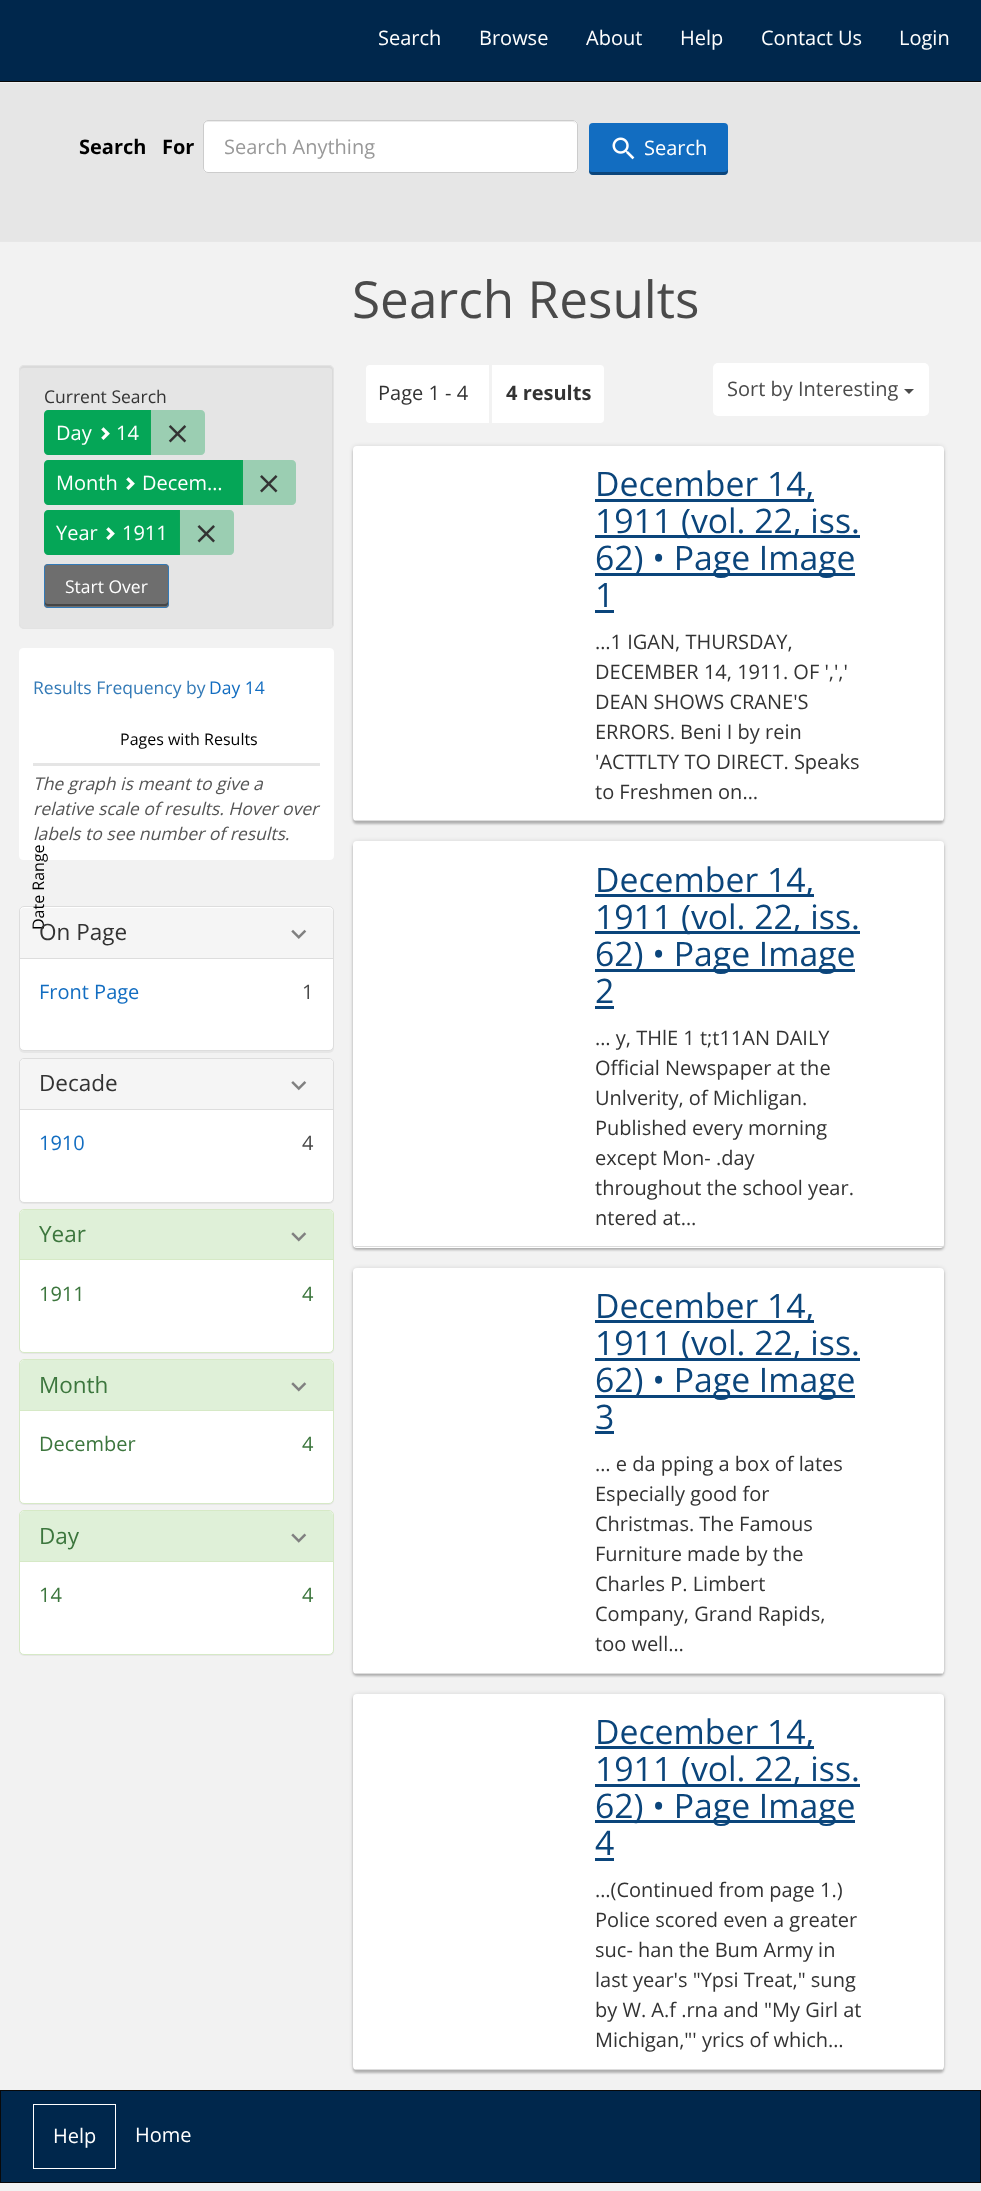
<svg xmlns="http://www.w3.org/2000/svg" width="981" height="2191" viewBox="0 0 981 2191">
  <defs>
    <filter id="blur1" x="-50%" y="-200%" width="200%" height="500%"><feGaussianBlur stdDeviation="0.5"/></filter>
    <filter id="blur2" x="-50%" y="-200%" width="200%" height="500%"><feGaussianBlur stdDeviation="2"/></filter>
    <filter id="blur3" x="-50%" y="-200%" width="200%" height="500%"><feGaussianBlur stdDeviation="1"/></filter>
  </defs>
  <rect width="100%" height="100%" fill="#f2f2f2"/>
  <rect x="0" y="0" width="981" height="81" fill="#00274c"/>
  <rect x="0" y="81" width="981" height="1" fill="#090909"/>
  <text x="378" y="45" font-family="Open Sans" font-size="20" fill="#ffffff">Search</text>
  <text x="479" y="45" font-family="Open Sans" font-size="20" fill="#ffffff">Browse</text>
  <text x="586" y="45" font-family="Open Sans" font-size="20" fill="#ffffff">About</text>
  <text x="680" y="45" font-family="Open Sans" font-size="20" fill="#ffffff">Help</text>
  <text x="761" y="45" font-family="Open Sans" font-size="20" fill="#ffffff">Contact Us</text>
  <text x="899" y="45" font-family="Open Sans" font-size="20" fill="#ffffff">Login</text>
  <rect x="0" y="241" width="981" height="1" fill="#e7e7e7"/>
  <rect x="0" y="83" width="981" height="158" fill="#e6e6e6"/>
  <text x="79" y="154" font-family="Open Sans" font-size="20" font-weight="bold" fill="#000000">Search</text>
  <text x="162" y="154" font-family="Open Sans" font-size="20" font-weight="bold" fill="#000000">For</text>
  <rect x="203" y="120" width="375" height="53" rx="5" fill="#ffffff"/>
  <path d="M208 122H572C575 122 576 124 576 126C576 123 575 121 572 121H208C205 121 204 123 204 126C204 124 205 122 208 122Z" fill="#ececec"/>
  <rect x="203.5" y="120.5" width="374" height="52" rx="4.5" fill="none" stroke="#cccccc"/>
  <text x="224" y="154" font-family="Open Sans" font-size="20" fill="#999999">Search Anything</text>
  <rect x="589" y="123" width="139" height="52" rx="4" fill="#126dc1"/>
  <path d="M589 169V171C589 173 591 175 593 175H724C726 175 728 173 728 171V169C728 171 726 172 724 172H592C590 172 589 171 589 169Z" fill="#000000" fill-opacity="0.36"/>
  <image x="612" y="137" width="23" height="23" href="img1.png"/>
  <text x="644" y="155" font-family="Open Sans" font-size="20" fill="#ffffff">Search</text>
  <text x="352" y="318" font-family="Open Sans" font-size="51.25" fill="#4a4a4a">Search Results</text>
  <rect x="19" y="365" width="315" height="264" rx="5" fill="#e5e5e5"/>
  <path d="M24 368H329C331 368 332 369 332 371V625V627C332 626 333 625 333 624V370C333 368 331 366 329 366H24C22 366 20 368 20 370V371C20 369 22 368 24 368Z" fill="#dadada"/>
  <rect x="19.5" y="365.5" width="314" height="263" rx="4.5" fill="none" stroke="#e3e3e3"/>
  <text x="44" y="403" font-family="Open Sans" font-size="17.5" fill="#333333">Current Search</text>
  <path d="M48 410H151V455H48C46 455 44 453 44 451V414C44 412 46 410 48 410Z" fill="#05a657"/>
  <text x="56" y="440" font-family="Open Sans" font-size="20" fill="#ffffff">Day</text>
  <image x="101" y="427" width="9" height="13" href="img2.png"/>
  <text x="116" y="440" font-family="Open Sans" font-size="20" fill="#ffffff">14</text>
  <path d="M150 410H201C203 410 205 412 205 414V451C205 453 203 455 201 455H150Z" fill="#1aa55a" fill-opacity="0.36"/>
  <image x="168" y="425" width="19" height="18" href="img3.png"/>
  <path d="M48 460H243V505H48C46 505 44 503 44 501V464C44 462 46 460 48 460Z" fill="#05a657"/>
  <text x="56" y="490" font-family="Open Sans" font-size="20" fill="#ffffff">Month</text>
  <image x="126" y="477" width="9" height="13" href="img2.png"/>
  <text x="142" y="490" font-family="Open Sans" font-size="20" fill="#ffffff">Decem…</text>
  <path d="M241 460H292C294 460 296 462 296 464V501C296 503 294 505 292 505H241Z" fill="#1aa55a" fill-opacity="0.36"/>
  <image x="260" y="475" width="18" height="18" href="img4.png"/>
  <path d="M48 510H180V555H48C46 555 44 553 44 551V514C44 512 46 510 48 510Z" fill="#05a657"/>
  <text x="56" y="540" font-family="Open Sans" font-size="20" fill="#ffffff">Year</text>
  <image x="106" y="527" width="9" height="13" href="img2.png"/>
  <text x="122" y="540" font-family="Open Sans" font-size="20" fill="#ffffff">1911</text>
  <path d="M179 510H230C232 510 234 512 234 514V551C234 553 232 555 230 555H179Z" fill="#1aa55a" fill-opacity="0.36"/>
  <image x="197" y="525" width="18" height="18" href="img5.png"/>
  <rect x="44" y="564" width="125" height="44" rx="4" fill="#6e6e6e"/>
  <path d="M45 601V604C45 605 46 606 48 606H166C167 606 168 605 168 604V601C168 603 166 604 165 604H48C46 604 45 603 45 601Z" fill="#464646"/>
  <rect x="44.5" y="564.5" width="124" height="43" rx="3.5" fill="none" stroke="#337ab7"/>
  <text x="65" y="593" font-family="Open Sans" font-size="17.5" fill="#ffffff">Start Over</text>
  <rect x="19.5" y="648.5" width="314" height="211" rx="3.5" fill="#ffffff" stroke="#ffffff"/>
  <text x="33" y="694" font-family="Open Sans" font-size="17.5" fill="#337ab7">Results Frequency by</text>
  <text x="209" y="694" font-family="Open Sans" font-size="17.5" fill="#126dc1">Day 14</text>
  <text x="120" y="745" font-family="Open Sans" font-size="16" fill="#000000">Pages with Results</text>
  <rect x="19" y="908" width="315" height="145" rx="5" fill="#000000" fill-opacity="0.05" filter="url(#blur1)"/>
  <rect x="19.5" y="906.5" width="314" height="144" rx="4.5" fill="#ffffff" stroke="#dddddd"/>
  <path d="M24 908H329C331 908 333 910 333 912V958H20V912C20 910 22 908 24 908Z" fill="#f5f5f5"/>
  <text x="44" y="930" transform="rotate(-90 44 930)" font-family="Open Sans" font-size="16" fill="#000000">Date Range</text>
  <rect x="33" y="763" width="287" height="3" fill="#e5e5e5"/>
  <text x="33" y="790" font-family="Open Sans" font-size="17.5" font-style="italic" fill="#555555">The graph is meant to give a</text>
  <text x="33" y="815" font-family="Open Sans" font-size="17.5" font-style="italic" fill="#555555">relative scale of results. Hover over</text>
  <text x="33" y="840" font-family="Open Sans" font-size="17.5" font-style="italic" fill="#555555">labels to see number of results.</text>
  <text x="39" y="940" font-family="Open Sans" font-size="22.5" fill="#333333">On Page</text>
  <image x="291" y="929" width="16" height="10" href="img6.png"/>
  <rect x="20" y="958" width="313" height="1" fill="#dddddd"/>
  <text x="39" y="999" font-family="Open Sans" font-size="20" fill="#126dc1">Front Page</text>
  <text x="302" y="999" font-family="Open Sans" font-size="20" fill="#4a4a4a">1</text>
  <rect x="19" y="1059" width="315" height="145" rx="5" fill="#000000" fill-opacity="0.05" filter="url(#blur1)"/>
  <rect x="19.5" y="1058.5" width="314" height="144" rx="4.5" fill="#ffffff" stroke="#dddddd"/>
  <path d="M24 1059H329C331 1059 333 1061 333 1063V1109H20V1063C20 1061 22 1059 24 1059Z" fill="#f5f5f5"/>
  <text x="39" y="1091" font-family="Open Sans" font-size="22.5" fill="#333333">Decade</text>
  <image x="291" y="1081" width="16" height="10" href="img7.png"/>
  <rect x="20" y="1109" width="313" height="1" fill="#dddddd"/>
  <text x="39" y="1150" font-family="Open Sans" font-size="20" fill="#126dc1">1910</text>
  <text x="302" y="1150" font-family="Open Sans" font-size="20" fill="#4a4a4a">4</text>
  <rect x="19" y="1210" width="315" height="144" rx="5" fill="#000000" fill-opacity="0.05" filter="url(#blur1)"/>
  <rect x="19.5" y="1209.5" width="314" height="143" rx="4.5" fill="#ffffff" stroke="#d6e9c6"/>
  <path d="M24 1210H329C331 1210 333 1212 333 1214V1259H20V1214C20 1212 22 1210 24 1210Z" fill="#dff0d8"/>
  <text x="39" y="1242" font-family="Open Sans" font-size="22.5" fill="#3c763d">Year</text>
  <image x="291" y="1232" width="16" height="10" href="img8.png"/>
  <rect x="20" y="1259" width="313" height="1" fill="#d6e9c6"/>
  <text x="39" y="1301" font-family="Open Sans" font-size="20" fill="#3c763d">1911</text>
  <text x="302" y="1301" font-family="Open Sans" font-size="20" fill="#3c763d">4</text>
  <rect x="19" y="1360" width="315" height="145" rx="5" fill="#000000" fill-opacity="0.05" filter="url(#blur1)"/>
  <rect x="19.5" y="1359.5" width="314" height="144" rx="4.5" fill="#ffffff" stroke="#d6e9c6"/>
  <path d="M24 1360H329C331 1360 333 1362 333 1364V1410H20V1364C20 1362 22 1360 24 1360Z" fill="#dff0d8"/>
  <text x="39" y="1393" font-family="Open Sans" font-size="22.5" fill="#3c763d">Month</text>
  <image x="291" y="1382" width="16" height="10" href="img8.png"/>
  <rect x="20" y="1410" width="313" height="1" fill="#d6e9c6"/>
  <text x="39" y="1451" font-family="Open Sans" font-size="20" fill="#3c763d">December</text>
  <text x="302" y="1451" font-family="Open Sans" font-size="20" fill="#3c763d">4</text>
  <rect x="19" y="1511" width="315" height="145" rx="5" fill="#000000" fill-opacity="0.05" filter="url(#blur1)"/>
  <rect x="19.5" y="1510.5" width="314" height="144" rx="4.5" fill="#ffffff" stroke="#d6e9c6"/>
  <path d="M24 1511H329C331 1511 333 1513 333 1515V1561H20V1515C20 1513 22 1511 24 1511Z" fill="#dff0d8"/>
  <text x="39" y="1544" font-family="Open Sans" font-size="22.5" fill="#3c763d">Day</text>
  <image x="291" y="1533" width="16" height="10" href="img9.png"/>
  <rect x="20" y="1561" width="313" height="1" fill="#d6e9c6"/>
  <text x="39" y="1602" font-family="Open Sans" font-size="20" fill="#3c763d">14</text>
  <text x="302" y="1602" font-family="Open Sans" font-size="20" fill="#3c763d">4</text>
  <rect x="366" y="365" width="238" height="58" rx="4" fill="#ffffff"/>
  <rect x="489" y="365" width="3" height="58" fill="#f2f2f2"/>
  <text x="378" y="400" font-family="Open Sans" font-size="20" fill="#333333">Page 1 - 4</text>
  <text x="506" y="400" font-family="Open Sans" font-size="20" font-weight="bold" fill="#333333">4 results</text>
  <rect x="713" y="363" width="216" height="53" rx="5" fill="#ffffff"/>
  <text x="727" y="396" font-family="Open Sans" font-size="20" fill="#4a4a4a">Sort by Interesting</text>
  <path d="M904 389H914L909 394Z" fill="#4a4a4a"/>
  <rect x="353" y="446" width="591" height="375" rx="4" fill="#000000" fill-opacity="0.12" filter="url(#blur2)"/>
  <rect x="353" y="449" width="591" height="375" rx="4" fill="#000000" fill-opacity="0.24" filter="url(#blur3)"/>
  <rect x="353" y="446" width="591" height="375" rx="4" fill="#ffffff"/>
  <rect x="355" y="820" width="588" height="1" fill="#dddddd"/>
  <rect x="595" y="499" width="219" height="3" fill="#0b457b"/>
  <text x="595" y="496" font-family="Open Sans" font-size="33.75" fill="#0b457b">December 14,</text>
  <rect x="595" y="535" width="265" height="3" fill="#0b457b"/>
  <text x="595" y="533" font-family="Open Sans" font-size="33.75" fill="#0b457b">1911 (vol. 22, iss.</text>
  <rect x="595" y="573" width="260" height="3" fill="#0b457b"/>
  <text x="595" y="570" font-family="Open Sans" font-size="33.75" fill="#0b457b">62) • Page Image</text>
  <text x="595" y="607" font-family="Open Sans" font-size="33.75" fill="#0b457b">1</text>
  <rect x="595" y="610" width="19" height="3" fill="#0b457b"/>
  <text x="595" y="649" font-family="Open Sans" font-size="20" fill="#333333">…1 IGAN, THURSDAY,</text>
  <text x="595" y="679" font-family="Open Sans" font-size="20" fill="#333333">DECEMBER 14, 1911. OF ',','</text>
  <text x="595" y="709" font-family="Open Sans" font-size="20" fill="#333333">DEAN SHOWS CRANE'S</text>
  <text x="595" y="739" font-family="Open Sans" font-size="20" fill="#333333">ERRORS. Beni I by rein</text>
  <text x="595" y="769" font-family="Open Sans" font-size="20" fill="#333333">'ACTTLTY TO DIRECT. Speaks</text>
  <text x="595" y="799" font-family="Open Sans" font-size="20" fill="#333333">to Freshmen on…</text>
  <rect x="353" y="841" width="591" height="407" rx="4" fill="#000000" fill-opacity="0.12" filter="url(#blur2)"/>
  <rect x="353" y="844" width="591" height="406" rx="4" fill="#000000" fill-opacity="0.24" filter="url(#blur3)"/>
  <rect x="353" y="841" width="591" height="407" rx="4" fill="#ffffff"/>
  <rect x="355" y="1246" width="588" height="1" fill="#dddddd"/>
  <rect x="595" y="894" width="219" height="3" fill="#0b457b"/>
  <text x="595" y="892" font-family="Open Sans" font-size="33.75" fill="#0b457b">December 14,</text>
  <rect x="595" y="931" width="265" height="3" fill="#0b457b"/>
  <text x="595" y="929" font-family="Open Sans" font-size="33.75" fill="#0b457b">1911 (vol. 22, iss.</text>
  <rect x="595" y="969" width="260" height="3" fill="#0b457b"/>
  <text x="595" y="966" font-family="Open Sans" font-size="33.75" fill="#0b457b">62) • Page Image</text>
  <text x="595" y="1003" font-family="Open Sans" font-size="33.75" fill="#0b457b">2</text>
  <rect x="595" y="1006" width="19" height="3" fill="#0b457b"/>
  <text x="595" y="1045" font-family="Open Sans" font-size="20" fill="#333333">… y, THlE 1 t;t11AN DAILY</text>
  <text x="595" y="1075" font-family="Open Sans" font-size="20" fill="#333333">Official Newspaper at the</text>
  <text x="595" y="1105" font-family="Open Sans" font-size="20" fill="#333333">Unlverity, of Michligan.</text>
  <text x="595" y="1135" font-family="Open Sans" font-size="20" fill="#333333">Published every morning</text>
  <text x="595" y="1165" font-family="Open Sans" font-size="20" fill="#333333">except Mon- .day</text>
  <text x="595" y="1195" font-family="Open Sans" font-size="20" fill="#333333">throughout the school year.</text>
  <text x="595" y="1225" font-family="Open Sans" font-size="20" fill="#333333">ntered at…</text>
  <rect x="353" y="1268" width="591" height="406" rx="4" fill="#000000" fill-opacity="0.12" filter="url(#blur2)"/>
  <rect x="353" y="1270" width="591" height="406" rx="4" fill="#000000" fill-opacity="0.24" filter="url(#blur3)"/>
  <rect x="353" y="1268" width="591" height="406" rx="4" fill="#ffffff"/>
  <rect x="355" y="1673" width="588" height="1" fill="#dddddd"/>
  <rect x="595" y="1320" width="219" height="3" fill="#0b457b"/>
  <text x="595" y="1318" font-family="Open Sans" font-size="33.75" fill="#0b457b">December 14,</text>
  <rect x="595" y="1358" width="265" height="3" fill="#0b457b"/>
  <text x="595" y="1355" font-family="Open Sans" font-size="33.75" fill="#0b457b">1911 (vol. 22, iss.</text>
  <rect x="595" y="1395" width="260" height="3" fill="#0b457b"/>
  <text x="595" y="1392" font-family="Open Sans" font-size="33.75" fill="#0b457b">62) • Page Image</text>
  <text x="595" y="1429" font-family="Open Sans" font-size="33.75" fill="#0b457b">3</text>
  <rect x="595" y="1431" width="19" height="3" fill="#0b457b"/>
  <text x="595" y="1471" font-family="Open Sans" font-size="20" fill="#333333">… e da pping a box of lates</text>
  <text x="595" y="1501" font-family="Open Sans" font-size="20" fill="#333333">Especially good for</text>
  <text x="595" y="1531" font-family="Open Sans" font-size="20" fill="#333333">Christmas. The Famous</text>
  <text x="595" y="1561" font-family="Open Sans" font-size="20" fill="#333333">Furniture made by the</text>
  <text x="595" y="1591" font-family="Open Sans" font-size="20" fill="#333333">Charles P. Limbert</text>
  <text x="595" y="1621" font-family="Open Sans" font-size="20" fill="#333333">Company, Grand Rapids,</text>
  <text x="595" y="1651" font-family="Open Sans" font-size="20" fill="#333333">too well…</text>
  <rect x="353" y="1694" width="591" height="376" rx="4" fill="#000000" fill-opacity="0.12" filter="url(#blur2)"/>
  <rect x="353" y="1696" width="591" height="377" rx="4" fill="#000000" fill-opacity="0.24" filter="url(#blur3)"/>
  <rect x="353" y="1694" width="591" height="376" rx="4" fill="#ffffff"/>
  <rect x="355" y="2069" width="588" height="1" fill="#dddddd"/>
  <rect x="595" y="1746" width="219" height="3" fill="#0b457b"/>
  <text x="595" y="1744" font-family="Open Sans" font-size="33.75" fill="#0b457b">December 14,</text>
  <rect x="595" y="1784" width="265" height="3" fill="#0b457b"/>
  <text x="595" y="1781" font-family="Open Sans" font-size="33.75" fill="#0b457b">1911 (vol. 22, iss.</text>
  <rect x="595" y="1820" width="260" height="3" fill="#0b457b"/>
  <text x="595" y="1818" font-family="Open Sans" font-size="33.75" fill="#0b457b">62) • Page Image</text>
  <text x="595" y="1855" font-family="Open Sans" font-size="33.75" fill="#0b457b">4</text>
  <rect x="595" y="1858" width="19" height="3" fill="#0b457b"/>
  <text x="595" y="1897" font-family="Open Sans" font-size="20" fill="#333333">…(Continued from page 1.)</text>
  <text x="595" y="1927" font-family="Open Sans" font-size="20" fill="#333333">Police scored even a greater</text>
  <text x="595" y="1957" font-family="Open Sans" font-size="20" fill="#333333">suc- han the Bum Army in</text>
  <text x="595" y="1987" font-family="Open Sans" font-size="20" fill="#333333">last year's "Ypsi Treat," sung</text>
  <text x="595" y="2017" font-family="Open Sans" font-size="20" fill="#333333">by W. A.f .rna and "My Girl at</text>
  <text x="595" y="2047" font-family="Open Sans" font-size="20" fill="#333333">Michigan,"' yrics of which…</text>
  <rect x="0.5" y="2090.5" width="980" height="92" fill="#00274c" stroke="#090909"/>
  <rect x="33.5" y="2104.5" width="82" height="64" fill="none" stroke="#ffffff"/>
  <text x="53" y="2143" font-family="Open Sans" font-size="20" fill="#ffffff">Help</text>
  <text x="135" y="2142" font-family="Open Sans" font-size="20" fill="#ffffff">Home</text>
</svg>
